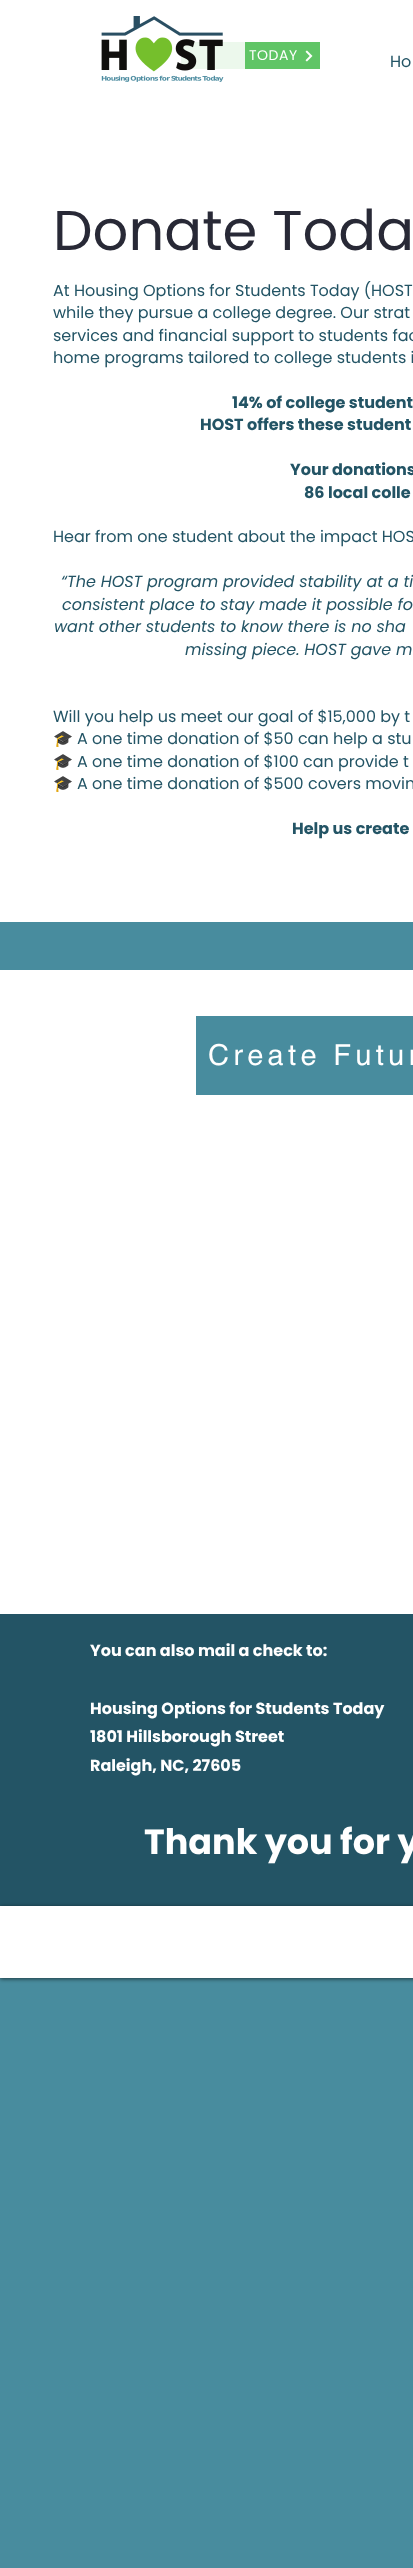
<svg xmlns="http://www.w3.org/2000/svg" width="413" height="2568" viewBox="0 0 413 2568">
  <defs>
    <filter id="blur1" x="-50%" y="-200%" width="200%" height="500%"><feGaussianBlur stdDeviation="2"/></filter>
  </defs>
  <rect width="100%" height="100%" fill="#488c9e"/>
  <rect x="0" y="0" width="413" height="922" fill="#ffffff"/>
  <rect x="181" y="42" width="139" height="27" fill="#60c566"/>
  <rect x="181" y="42" width="64" height="27" fill="#ffffff" fill-opacity="0.88"/>
  <image x="101" y="16" width="123" height="66" href="img1.png"/>
  <text x="249" y="60" font-family="Poppins" font-size="14" letter-spacing="0.5" fill="#ffffff">TODAY</text>
  <image x="305" y="50" width="8" height="12" href="img2.png"/>
  <text x="390" y="67" font-family="Poppins" font-size="16" fill="#235465">Ho</text>
  <text x="53" y="250" font-family="Poppins" font-size="56" fill="#282936">Donate Toda</text>
  <text x="53" y="296" font-family="Poppins" font-size="16" fill="#235465">At Housing Options for Students Today (HOST</text>
  <text x="53" y="318" font-family="Poppins" font-size="16" fill="#235465">while they pursue a college degree. Our strat</text>
  <text x="53" y="341" font-family="Poppins" font-size="16" fill="#235465">services and financial support to students fac</text>
  <text x="53" y="363" font-family="Poppins" font-size="16" fill="#235465">home programs tailored to college students i</text>
  <text x="232" y="408" font-family="Poppins" font-size="16" font-weight="bold" fill="#235465">14% of college student</text>
  <text x="200" y="430" font-family="Poppins" font-size="16" font-weight="bold" fill="#235465">HOST offers these student</text>
  <text x="290" y="475" font-family="Poppins" font-size="16" font-weight="bold" fill="#235465">Your donations</text>
  <text x="304" y="498" font-family="Poppins" font-size="16" font-weight="bold" fill="#235465">86 local colle</text>
  <text x="53" y="542" font-family="Poppins" font-size="16" fill="#235465">Hear from one student about the impact HOS</text>
  <text x="61" y="587" font-family="Poppins" font-size="16" font-style="italic" fill="#235465">“The HOST program provided stability at a ti</text>
  <text x="62" y="610" font-family="Poppins" font-size="16" font-style="italic" fill="#235465">consistent place to stay made it possible fo</text>
  <text x="54" y="632" font-family="Poppins" font-size="16" font-style="italic" fill="#235465">want other students to know there is no sha</text>
  <text x="185" y="655" font-family="Poppins" font-size="16" font-style="italic" fill="#235465">missing piece. HOST gave m</text>
  <text x="53" y="722" font-family="Poppins" font-size="16" fill="#235465">Will you help us meet our goal of $15,000 by t</text>
  <text x="53" y="744" font-family="Noto Color Emoji" font-size="16" fill="#235465">🎓</text>
  <text x="77" y="744" font-family="Poppins" font-size="16" fill="#235465">A one time donation of $50 can help a stu</text>
  <text x="53" y="767" font-family="Noto Color Emoji" font-size="16" fill="#235465">🎓</text>
  <text x="77" y="767" font-family="Poppins" font-size="16" fill="#235465">A one time donation of $100 can provide t</text>
  <text x="53" y="789" font-family="Noto Color Emoji" font-size="16" fill="#235465">🎓</text>
  <text x="77" y="789" font-family="Poppins" font-size="16" fill="#235465">A one time donation of $500 covers movin</text>
  <text x="292" y="834" font-family="Poppins" font-size="16" font-weight="bold" fill="#235465">Help us create</text>
  <rect x="0" y="970" width="413" height="644" fill="#ffffff"/>
  <rect x="196" y="1016" width="217" height="79" fill="#488c9e"/>
  <text x="208" y="1065" font-family="helvetica" font-size="29" letter-spacing="4.3" fill="#ffffff">Create Futur</text>
  <rect x="0" y="1614" width="413" height="292" fill="#235465"/>
  <text x="90" y="1656" font-family="Poppins" font-size="16" font-weight="bold" fill="#ffffff">You can also mail a check to:</text>
  <text x="90" y="1714" font-family="Poppins" font-size="16" font-weight="bold" fill="#ffffff">Housing Options for Students Today</text>
  <text x="90" y="1742" font-family="Poppins" font-size="16" font-weight="bold" fill="#ffffff">1801 Hillsborough Street</text>
  <text x="90" y="1771" font-family="Poppins" font-size="16" font-weight="bold" fill="#ffffff">Raleigh, NC, 27605</text>
  <text x="144" y="1854" font-family="Poppins" font-size="35" font-weight="bold" fill="#ffffff">Thank you for y</text>
  <rect x="0" y="1907" width="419" height="72" fill="#000000" fill-opacity="0.6" filter="url(#blur1)"/>
  <rect x="0" y="1906" width="413" height="72" fill="#ffffff"/>
</svg>
